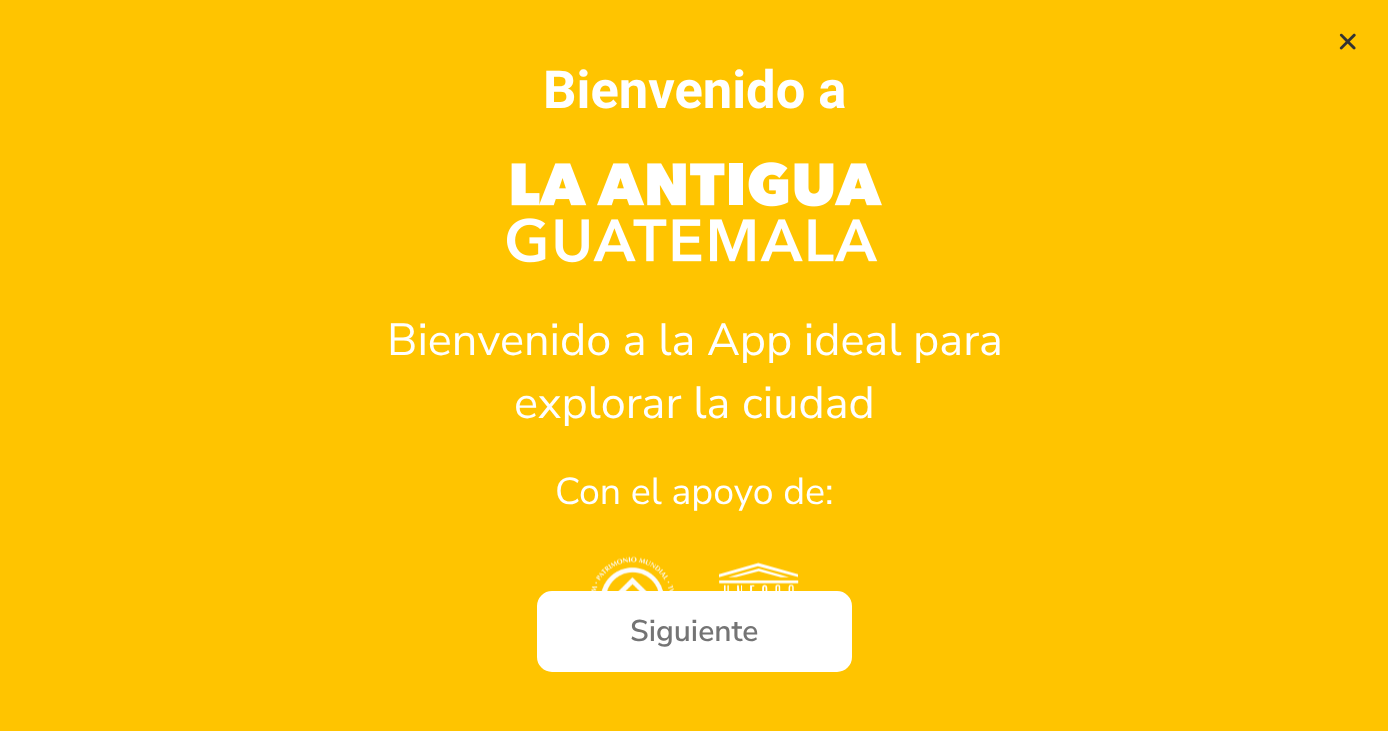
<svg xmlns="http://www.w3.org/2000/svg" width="1388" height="731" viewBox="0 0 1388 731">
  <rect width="100%" height="100%" fill="#ffc400"/>
  <image x="1339" y="33" width="17" height="17" href="img1.png"/>
  <text x="543" y="108" font-family="Roboto" font-size="52.5" font-weight="bold" fill="#ffffff">Bienvenido a</text>
  <image x="507" y="162" width="375" height="101" href="img2.png"/>
  <text x="387" y="355" font-family="Nunito Sans" font-size="45" fill="#ffffff">Bienvenido a la App ideal para</text>
  <text x="514" y="418" font-family="Nunito Sans" font-size="45" fill="#ffffff">explorar la ciudad</text>
  <text x="555" y="504" font-family="Nunito Sans" font-size="37.5" fill="#ffffff">Con el apoyo de:</text>
  <image x="591" y="556" width="208" height="35" href="img3.png"/>
  <rect x="538.5" y="592.5" width="312" height="78" rx="13.5" fill="#ffffff" stroke="#ffffff" stroke-width="3"/>
  <text x="630" y="641" font-family="Nunito Sans" font-size="30" font-weight="600" fill="#747474">Siguiente</text>
</svg>
